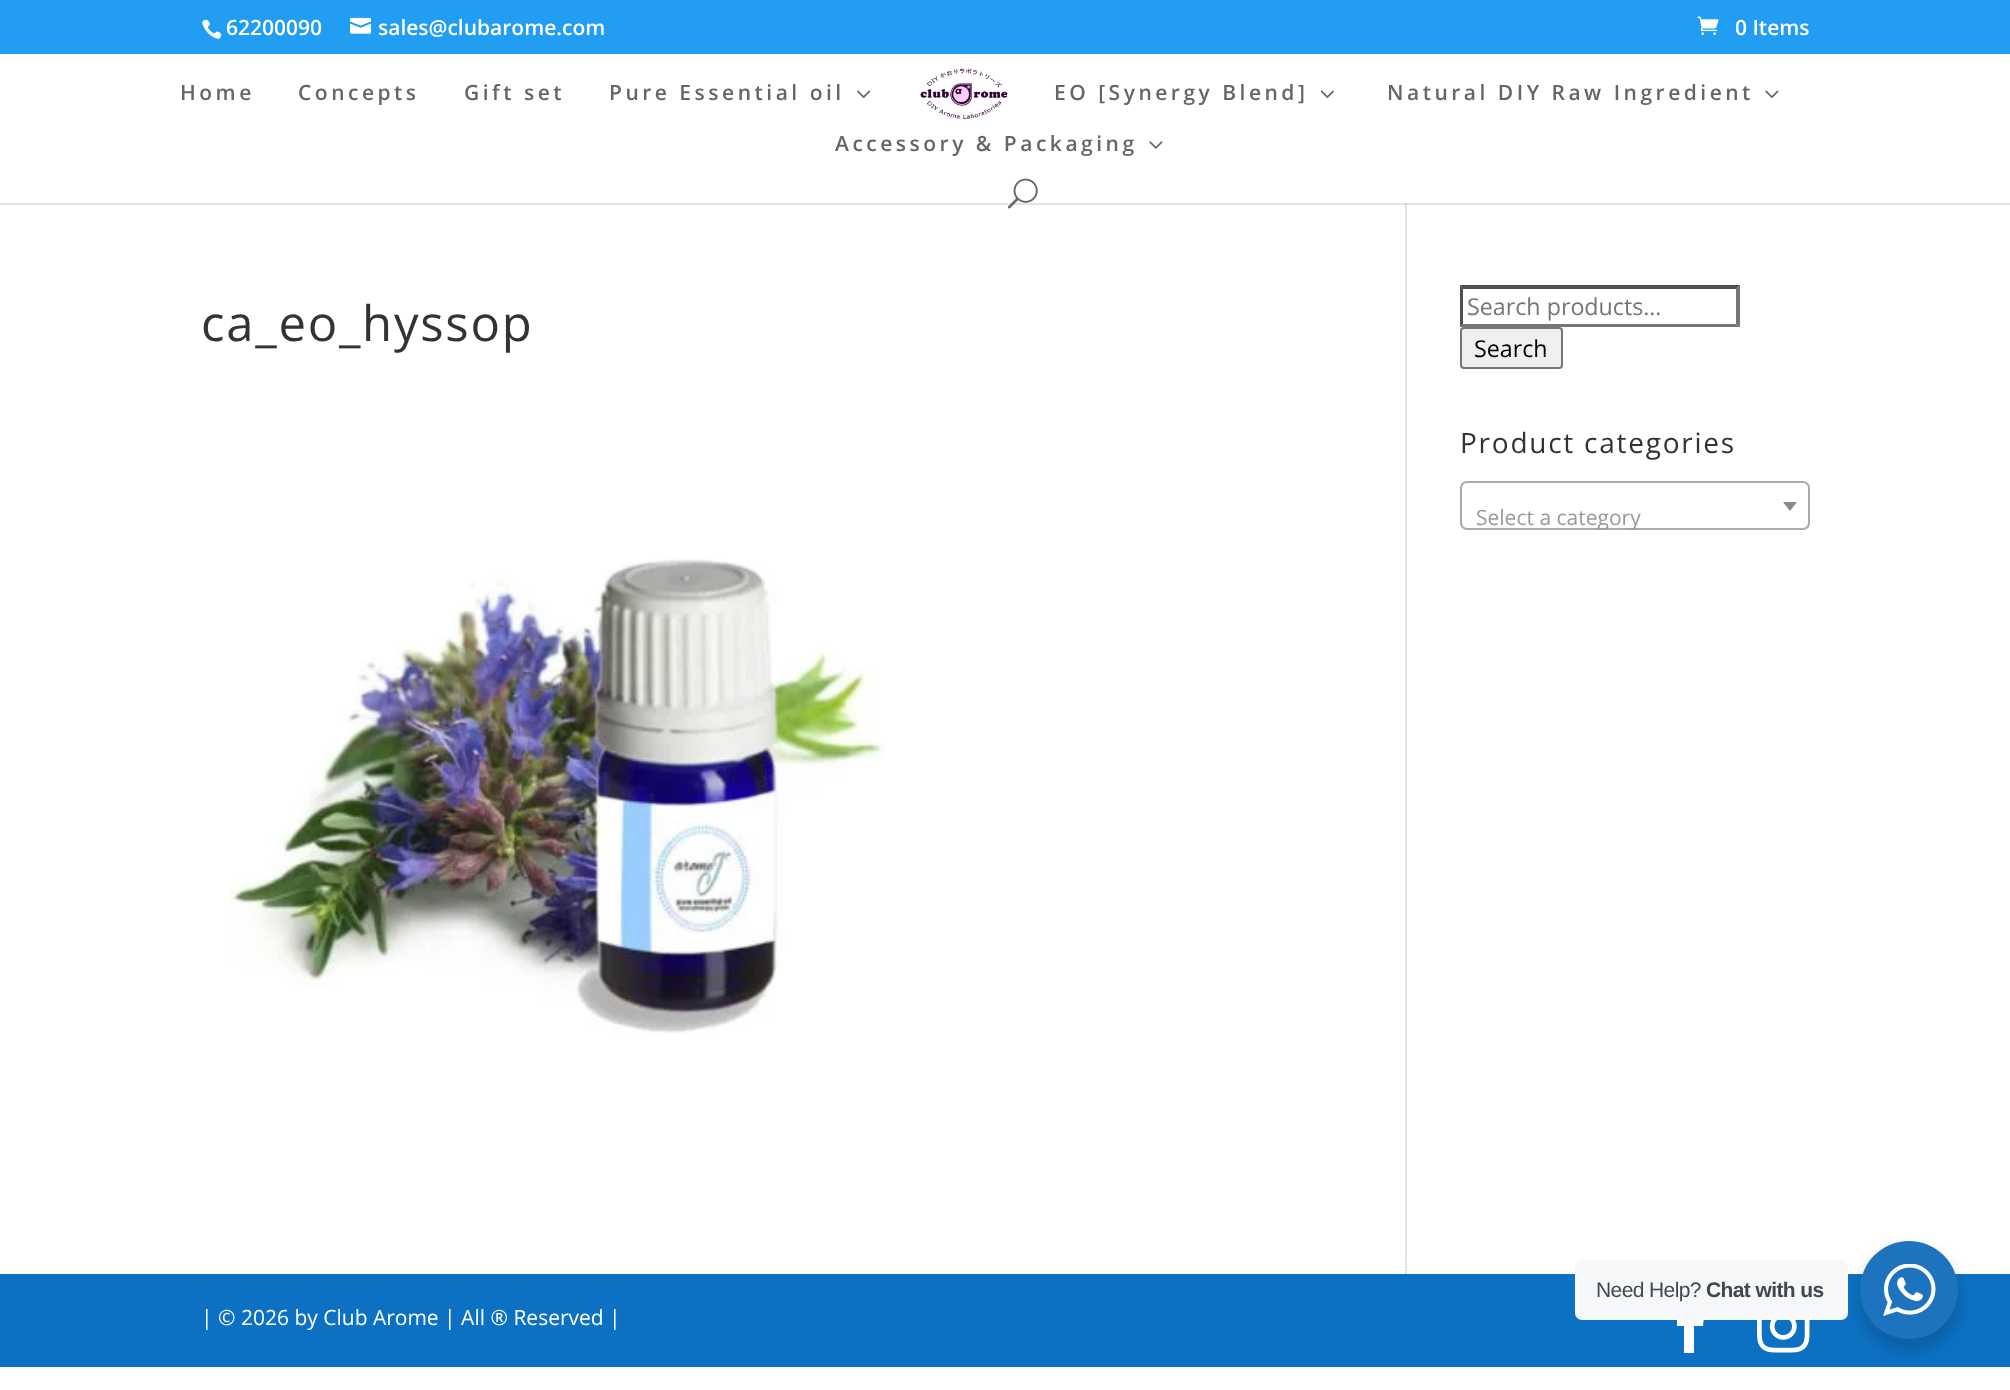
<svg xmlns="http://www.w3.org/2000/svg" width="2010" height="1390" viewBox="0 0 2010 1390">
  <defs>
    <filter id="blur1" x="-50%" y="-200%" width="200%" height="500%"><feGaussianBlur stdDeviation="7"/></filter>
  </defs>
  <rect width="100%" height="100%" fill="#ffffff"/>
  <rect x="0" y="0" width="2010" height="54" fill="#219ef2"/>
  <image x="202" y="19" width="20" height="20" href="img1.png"/>
  <text x="226" y="35" font-family="Open Sans" font-size="21" font-weight="600" fill="#ffffff">62200090</text>
  <image x="350" y="17" width="21" height="17" href="img2.png"/>
  <text x="378" y="35" font-family="Open Sans" font-size="21" font-weight="600" fill="#ffffff">sales@clubarome.com</text>
  <image x="1697" y="16" width="22" height="19" href="img3.png"/>
  <text x="1735" y="35" font-family="Open Sans" font-size="21" font-weight="600" fill="#ffffff">0 Items</text>
  <rect x="1405" y="203" width="2" height="1071" fill="#e2e2e2"/>
  <path d="M0 203V205H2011V56V203Z" fill="#000000" fill-opacity="0.1"/>
  <text x="180" y="100" font-family="Open Sans" font-size="21" font-weight="600" letter-spacing="3.5" fill="#666666">Home</text>
  <text x="298" y="100" font-family="Open Sans" font-size="21" font-weight="600" letter-spacing="3.5" fill="#666666">Concepts</text>
  <text x="464" y="100" font-family="Open Sans" font-size="21" font-weight="600" letter-spacing="3.5" fill="#666666">Gift set</text>
  <text x="609" y="100" font-family="Open Sans" font-size="21" font-weight="600" letter-spacing="3.5" fill="#666666">Pure Essential oil</text>
  <image x="857" y="90" width="14" height="8" href="img4.png"/>
  <image x="920" y="68" width="88" height="52" href="img5.png"/>
  <text x="1054" y="100" font-family="Open Sans" font-size="21" font-weight="600" letter-spacing="3.5" fill="#666666">EO [Synergy Blend]</text>
  <image x="1320" y="90" width="14" height="8" href="img6.png"/>
  <text x="1387" y="100" font-family="Open Sans" font-size="21" font-weight="600" letter-spacing="3.5" fill="#666666">Natural DIY Raw Ingredient</text>
  <image x="1765" y="90" width="14" height="8" href="img7.png"/>
  <text x="835" y="151" font-family="Open Sans" font-size="21" font-weight="600" letter-spacing="3.5" fill="#666666">Accessory &amp; Packaging</text>
  <image x="1149" y="141" width="14" height="8" href="img8.png"/>
  <image x="1007" y="178" width="31" height="31" href="img9.png"/>
  <text x="201" y="341" font-family="Open Sans" font-size="49" letter-spacing="1.75" fill="#333333">ca_eo_hyssop</text>
  <image x="229" y="559" width="658" height="475" href="img10.png"/>
  <path d="M1460 285H1740L1736 289H1463Z" fill="#4f4f4f"/>
  <path d="M1740 285V327L1736 324V289Z" fill="#767676"/>
  <path d="M1740 327H1460L1463 324H1736Z" fill="#767676"/>
  <path d="M1460 327V285L1463 289V324Z" fill="#4f4f4f"/>
  <text x="1467" y="315" font-family="Open Sans" font-size="23.25" fill="#757575">Search products…</text>
  <rect x="1461" y="328" width="101" height="40" rx="3" fill="#efefef" stroke="#767676" stroke-width="2"/>
  <text x="1474" y="357" font-family="Open Sans" font-size="23.25" fill="#000000">Search</text>
  <text x="1460" y="453" font-family="Open Sans" font-size="28" letter-spacing="1.75" fill="#333333">Product categories</text>
  <rect x="1461" y="482" width="348" height="47" rx="6" fill="none" stroke="#aaaaaa" stroke-width="2"/>
  <path d="M1783 502H1797L1790 511Z" fill="#888888"/>
  <text x="1476" y="525" font-family="Open Sans" font-size="21" fill="#999999">Select a category</text>
  <rect x="0" y="1274" width="2010" height="93" fill="#0c71c3"/>
  <text x="201" y="1325" font-family="Open Sans" font-size="21" fill="#ffffff">| © 2026 by Club Arome | All ® Reserved |</text>
  <path d="M1684 1353H1694V1326H1703L1704 1317H1694C1694 1308 1694 1309 1704 1309V1300C1687 1300 1684 1299 1684 1317H1677V1326H1684Z" fill="#ffffff"/>
  <image x="1757" y="1320" width="53" height="33" href="img11.png"/>
  <rect x="1857" y="1248" width="105" height="105" rx="52.5" fill="#000000" fill-opacity="0.14" filter="url(#blur1)"/>
  <rect x="1575" y="1260" width="273" height="60" rx="7" fill="#f5f7f9"/>
  <text x="1596" y="1297" font-family="Liberation Sans" font-size="21" letter-spacing="-0.6" fill="#43474e">Need Help?</text>
  <text x="1706" y="1297" font-family="Liberation Sans" font-size="21" font-weight="bold" letter-spacing="-0.6" fill="#43474e">Chat with us</text>
  <circle cx="1909" cy="1290" r="49" fill="#1e73be"/>
  <image x="1883" y="1264" width="53" height="52" href="img12.png"/>
</svg>
